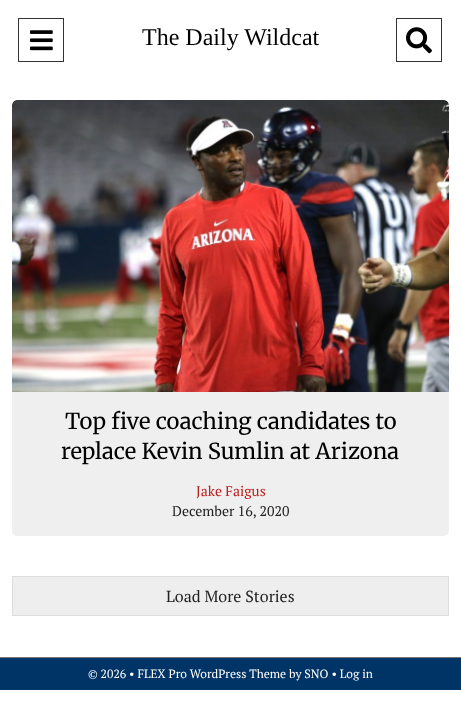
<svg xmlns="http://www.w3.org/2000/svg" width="461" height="702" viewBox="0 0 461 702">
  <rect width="100%" height="100%" fill="#ffffff"/>
  <rect x="18.5" y="18.5" width="45" height="43" fill="none" stroke="#333333"/>
  <image x="30" y="30" width="23" height="21" href="img1.png"/>
  <text x="142" y="45" font-family="Liberation Serif" font-size="24" fill="#000000">The Daily Wildcat</text>
  <rect x="396.5" y="18.5" width="45" height="43" fill="none" stroke="#333333"/>
  <image x="406" y="27" width="26" height="27" href="img2.png"/>
  <rect x="12" y="100" width="437" height="436" rx="5" fill="#efefef"/>
  <path d="M17 100H444C447 100 449 102 449 105V392H12V105C12 102 14 100 17 100Z" fill="#dddddd"/>
  <image x="12" y="100" width="437" height="292" href="img3.png"/>
  <text x="65" y="429" font-family="Merriweather" font-size="22" fill="#000000">Top five coaching candidates to</text>
  <text x="61" y="459" font-family="Merriweather" font-size="22" fill="#000000">replace Kevin Sumlin at Arizona</text>
  <text x="196" y="496" font-family="PT Serif" font-size="14" fill="#bc1e1e">Jake Faigus</text>
  <text x="172" y="516" font-family="PT Serif" font-size="14" fill="#222222">December 16, 2020</text>
  <rect x="12.5" y="576.5" width="436" height="39" fill="#eeeeee" stroke="#dddddd"/>
  <text x="166" y="602" font-family="PT Serif" font-size="16" fill="#222222">Load More Stories</text>
  <rect x="0" y="658" width="461" height="32" fill="#003366"/>
  <rect x="0" y="657" width="461" height="1" fill="#777777"/>
  <text x="88" y="678" font-family="PT Serif" font-size="12" fill="#ffffff">© 2026 • FLEX Pro WordPress Theme by SNO • Log in</text>
</svg>
